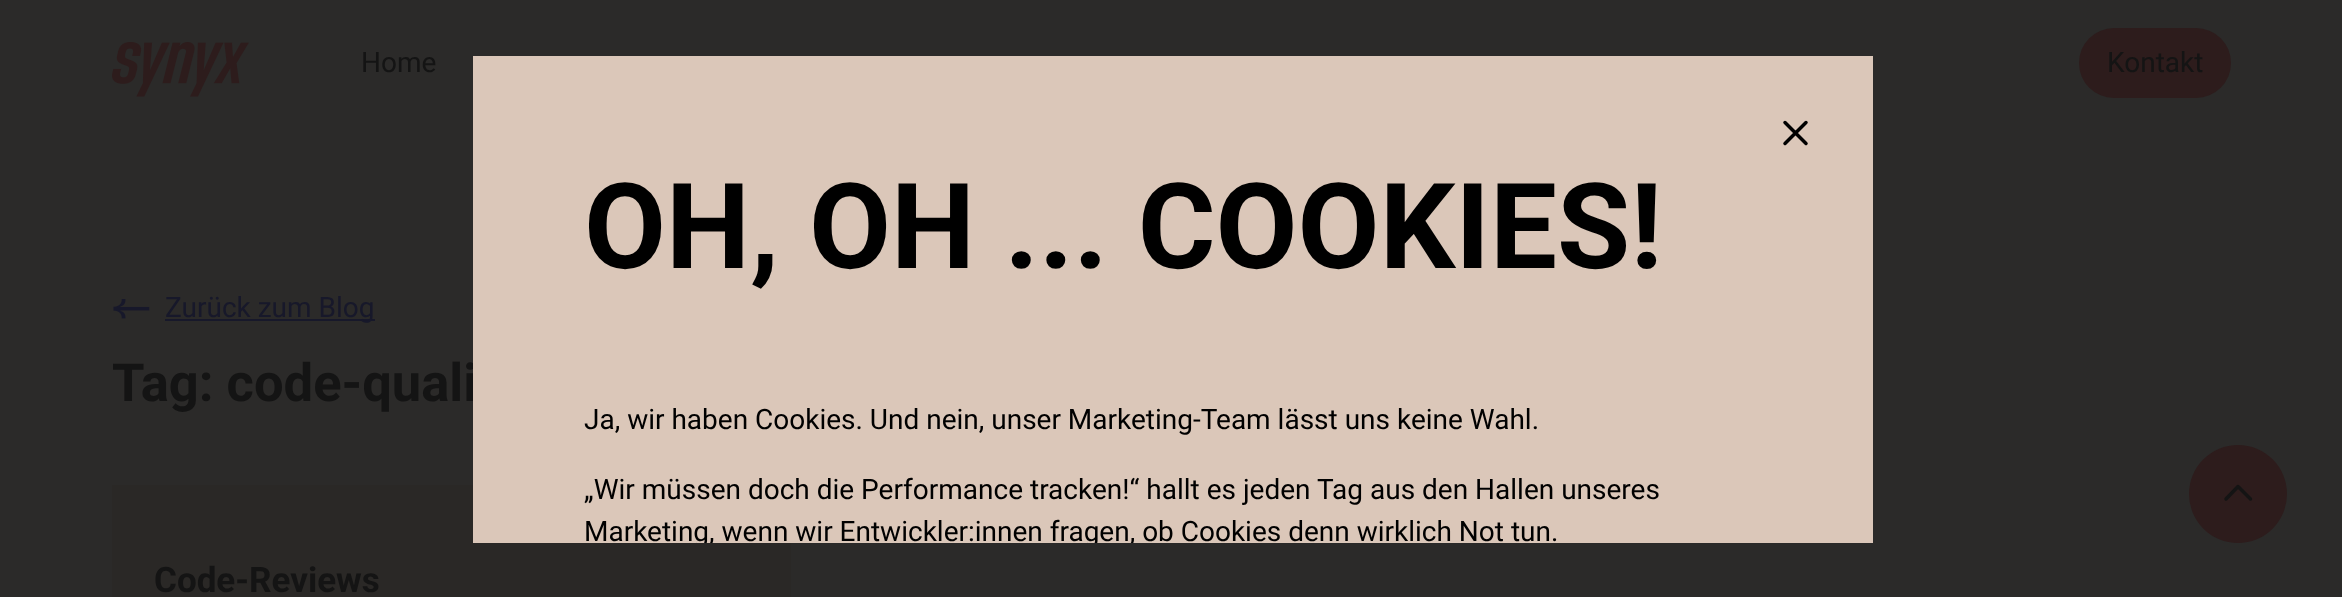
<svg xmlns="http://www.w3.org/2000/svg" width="2342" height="597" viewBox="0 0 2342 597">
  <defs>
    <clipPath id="clip1"><rect x="473" y="56" width="1400" height="487"/></clipPath>
  </defs>
  <rect width="100%" height="100%" fill="#2b2a29"/>
  <image x="112" y="42" width="137" height="55" href="img1.png"/>
  <text x="361" y="72" font-family="Roboto" font-size="28" fill="#141414">Home</text>
  <rect x="2079" y="28" width="152" height="70" rx="35" fill="#2d1c1c"/>
  <text x="2107" y="72" font-family="Roboto" font-size="28" fill="#141414">Kontakt</text>
  <image x="113" y="299" width="37" height="20" href="img2.png"/>
  <rect x="165" y="319" width="210" height="2" fill="#17182a"/>
  <text x="165" y="317" font-family="Roboto" font-size="28" fill="#17182a">Zurück zum Blog</text>
  <text x="112" y="401" font-family="Roboto" font-size="52.5" font-weight="bold" fill="#141414">Tag: code-quali</text>
  <rect x="112" y="485" width="679" height="112" fill="#2a2826"/>
  <text x="154" y="592" font-family="Roboto" font-size="35" font-weight="bold" fill="#141414">Code-Reviews</text>
  <rect x="473" y="56" width="1400" height="487" fill="#dbc7b9"/>
  <path d="M1806 122.5L1785 143.5M1785 122.5L1806 143.5" fill="none" stroke="#000000" stroke-width="3.5" stroke-linecap="round" stroke-linejoin="round"/>
  <text x="584" y="268" font-family="Roboto" font-size="119" font-weight="bold" fill="#000000">OH, OH ... COOKIES!</text>
  <text x="584" y="429" font-family="Roboto" font-size="28" fill="#000000">Ja, wir haben Cookies. Und nein, unser Marketing-Team lässt uns keine Wahl.</text>
  <text x="584" y="499" font-family="Roboto" font-size="28" fill="#000000">„Wir müssen doch die Performance tracken!“ hallt es jeden Tag aus den Hallen unseres</text>
  <g clip-path="url(#clip1)">
    <text x="584" y="541" font-family="Roboto" font-size="28" fill="#000000">Marketing, wenn wir Entwickler:innen fragen, ob Cookies denn wirklich Not tun.</text>
  </g>
  <circle cx="2238" cy="494" r="49" fill="#2d1c1c"/>
  <path d="M2226 499L2238 486.5L2250.5 499" fill="none" stroke="#141414" stroke-width="3.5" stroke-linecap="round" stroke-linejoin="round"/>
</svg>
